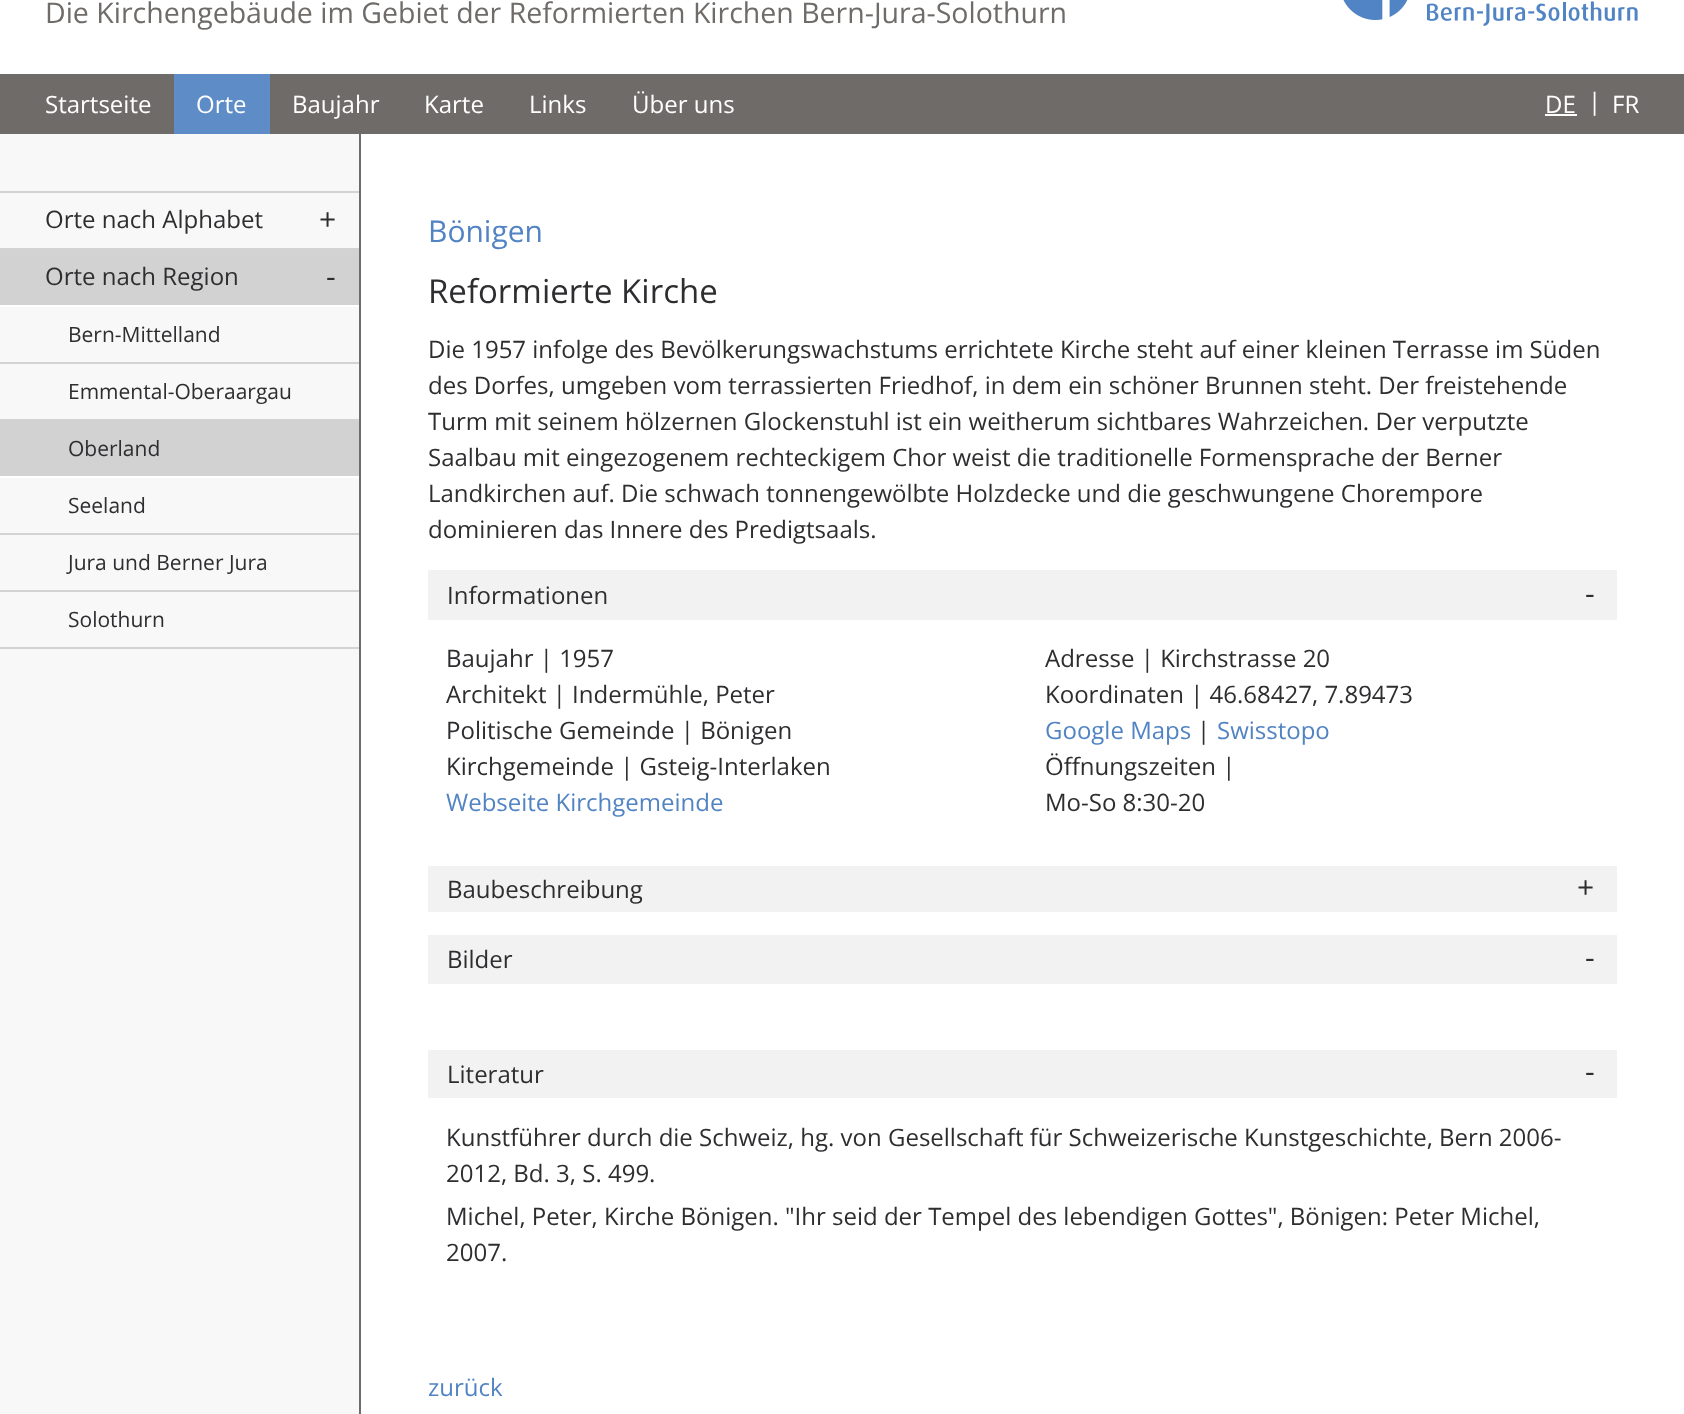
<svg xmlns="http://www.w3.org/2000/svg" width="1684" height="1414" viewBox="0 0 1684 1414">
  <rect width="100%" height="100%" fill="#ffffff"/>
  <text x="45" y="23" font-family="Open Sans" font-size="28.5" fill="#6f6b69">Die Kirchengebäude im Gebiet der Reformierten Kirchen Bern-Jura-Solothurn</text>
  <image x="1343" y="0" width="295" height="26" href="img1.png"/>
  <rect x="0" y="74" width="1684" height="60" fill="#6f6b69"/>
  <text x="45" y="113" font-family="Open Sans" font-size="24" fill="#ffffff">Startseite</text>
  <rect x="174" y="74" width="96" height="60" fill="#5d8cc6"/>
  <text x="196" y="113" font-family="Open Sans" font-size="24" fill="#ffffff">Orte</text>
  <text x="292" y="113" font-family="Open Sans" font-size="24" fill="#ffffff">Baujahr</text>
  <text x="424" y="113" font-family="Open Sans" font-size="24" fill="#ffffff">Karte</text>
  <text x="529" y="113" font-family="Open Sans" font-size="24" fill="#ffffff">Links</text>
  <text x="632" y="113" font-family="Open Sans" font-size="24" fill="#ffffff">Über uns</text>
  <text x="1545" y="113" font-family="Open Sans" font-size="24" fill="#ffffff">DE</text>
  <rect x="1545" y="114" width="32" height="2" fill="#ffffff"/>
  <text x="1588" y="110" font-family="Open Sans" font-size="24" fill="#ffffff">|</text>
  <text x="1612" y="113" font-family="Open Sans" font-size="24" fill="#ffffff">FR</text>
  <rect x="0" y="134" width="359" height="1280" fill="#f8f8f8"/>
  <rect x="359" y="134" width="2" height="1280" fill="#6f6b69"/>
  <rect x="0" y="191" width="359" height="2" fill="#d2d3d4"/>
  <rect x="0" y="248" width="359" height="1" fill="#d2d3d4"/>
  <text x="45" y="228" font-family="Open Sans" font-size="24" fill="#2e2e31">Orte nach Alphabet</text>
  <text x="319" y="230" font-family="Open Sans" font-size="30" fill="#2e2e31">+</text>
  <rect x="0" y="249" width="359" height="56" fill="#d2d2d2"/>
  <rect x="0" y="305" width="359" height="2" fill="#ffffff"/>
  <text x="45" y="285" font-family="Open Sans" font-size="24" fill="#2e2e31">Orte nach Region</text>
  <text x="326" y="287" font-family="Open Sans" font-size="30" fill="#2e2e31">-</text>
  <rect x="0" y="362" width="359" height="2" fill="#d2d3d4"/>
  <text x="68" y="342" font-family="Open Sans" font-size="21" fill="#2e2e31">Bern-Mittelland</text>
  <rect x="0" y="419" width="359" height="1" fill="#d2d3d4"/>
  <text x="68" y="399" font-family="Open Sans" font-size="21" fill="#2e2e31">Emmental-Oberaargau</text>
  <rect x="0" y="420" width="359" height="56" fill="#d2d2d2"/>
  <rect x="0" y="476" width="359" height="2" fill="#ffffff"/>
  <text x="68" y="456" font-family="Open Sans" font-size="21" fill="#2e2e31">Oberland</text>
  <rect x="0" y="533" width="359" height="2" fill="#d2d3d4"/>
  <text x="68" y="513" font-family="Open Sans" font-size="21" fill="#2e2e31">Seeland</text>
  <rect x="0" y="590" width="359" height="2" fill="#d2d3d4"/>
  <text x="68" y="570" font-family="Open Sans" font-size="21" fill="#2e2e31">Jura und Berner Jura</text>
  <rect x="0" y="647" width="359" height="2" fill="#d2d3d4"/>
  <text x="68" y="627" font-family="Open Sans" font-size="21" fill="#2e2e31">Solothurn</text>
  <text x="428" y="242" font-family="Open Sans" font-size="30" fill="#5284c3">Bönigen</text>
  <text x="428" y="303" font-family="Open Sans" font-size="33" fill="#2e2e31">Reformierte Kirche</text>
  <text x="428" y="358" font-family="Open Sans" font-size="24" fill="#2e2e31">Die 1957 infolge des Bevölkerungswachstums errichtete Kirche steht auf einer kleinen Terrasse im Süden</text>
  <text x="428" y="394" font-family="Open Sans" font-size="24" fill="#2e2e31">des Dorfes, umgeben vom terrassierten Friedhof, in dem ein schöner Brunnen steht. Der freistehende</text>
  <text x="428" y="430" font-family="Open Sans" font-size="24" fill="#2e2e31">Turm mit seinem hölzernen Glockenstuhl ist ein weitherum sichtbares Wahrzeichen. Der verputzte</text>
  <text x="428" y="466" font-family="Open Sans" font-size="24" fill="#2e2e31">Saalbau mit eingezogenem rechteckigem Chor weist die traditionelle Formensprache der Berner</text>
  <text x="428" y="502" font-family="Open Sans" font-size="24" fill="#2e2e31">Landkirchen auf. Die schwach tonnengewölbte Holzdecke und die geschwungene Chorempore</text>
  <text x="428" y="538" font-family="Open Sans" font-size="24" fill="#2e2e31">dominieren das Innere des Predigtsaals.</text>
  <rect x="428" y="570" width="1189" height="50" fill="#f2f2f2"/>
  <text x="447" y="604" font-family="Open Sans" font-size="24" fill="#2e2e31">Informationen</text>
  <text x="1585" y="604" font-family="Open Sans" font-size="30" fill="#2e2e31">-</text>
  <text x="446" y="667" font-family="Open Sans" font-size="24" fill="#2e2e31">Baujahr | 1957</text>
  <text x="446" y="703" font-family="Open Sans" font-size="24" fill="#2e2e31">Architekt | Indermühle, Peter</text>
  <text x="446" y="739" font-family="Open Sans" font-size="24" fill="#2e2e31">Politische Gemeinde | Bönigen</text>
  <text x="446" y="775" font-family="Open Sans" font-size="24" fill="#2e2e31">Kirchgemeinde | Gsteig-Interlaken</text>
  <text x="446" y="811" font-family="Open Sans" font-size="24" fill="#5284c3">Webseite Kirchgemeinde</text>
  <text x="1045" y="667" font-family="Open Sans" font-size="24" fill="#2e2e31">Adresse | Kirchstrasse 20</text>
  <text x="1045" y="703" font-family="Open Sans" font-size="24" fill="#2e2e31">Koordinaten | 46.68427, 7.89473</text>
  <text x="1045" y="739" font-family="Open Sans" font-size="24" fill="#5284c3">Google Maps</text>
  <text x="1197" y="739" font-family="Open Sans" font-size="24" fill="#2e2e31">|</text>
  <text x="1217" y="739" font-family="Open Sans" font-size="24" fill="#5284c3">Swisstopo</text>
  <text x="1045" y="775" font-family="Open Sans" font-size="24" fill="#2e2e31">Öffnungszeiten |</text>
  <text x="1045" y="811" font-family="Open Sans" font-size="24" fill="#2e2e31">Mo-So 8:30-20</text>
  <rect x="428" y="866" width="1189" height="46" fill="#f2f2f2"/>
  <text x="447" y="898" font-family="Open Sans" font-size="24" fill="#2e2e31">Baubeschreibung</text>
  <text x="1577" y="898" font-family="Open Sans" font-size="30" fill="#2e2e31">+</text>
  <rect x="428" y="935" width="1189" height="49" fill="#f2f2f2"/>
  <text x="447" y="968" font-family="Open Sans" font-size="24" fill="#2e2e31">Bilder</text>
  <text x="1585" y="968" font-family="Open Sans" font-size="30" fill="#2e2e31">-</text>
  <rect x="428" y="1050" width="1189" height="48" fill="#f2f2f2"/>
  <text x="447" y="1083" font-family="Open Sans" font-size="24" fill="#2e2e31">Literatur</text>
  <text x="1585" y="1082" font-family="Open Sans" font-size="30" fill="#2e2e31">-</text>
  <text x="446" y="1146" font-family="Open Sans" font-size="24" fill="#2e2e31">Kunstführer durch die Schweiz, hg. von Gesellschaft für Schweizerische Kunstgeschichte, Bern 2006-</text>
  <text x="446" y="1182" font-family="Open Sans" font-size="24" fill="#2e2e31">2012, Bd. 3, S. 499.</text>
  <text x="446" y="1225" font-family="Open Sans" font-size="24" fill="#2e2e31">Michel, Peter, Kirche Bönigen. "Ihr seid der Tempel des lebendigen Gottes", Bönigen: Peter Michel,</text>
  <text x="446" y="1261" font-family="Open Sans" font-size="24" fill="#2e2e31">2007.</text>
  <text x="428" y="1396" font-family="Open Sans" font-size="24" fill="#5284c3">zurück</text>
</svg>
